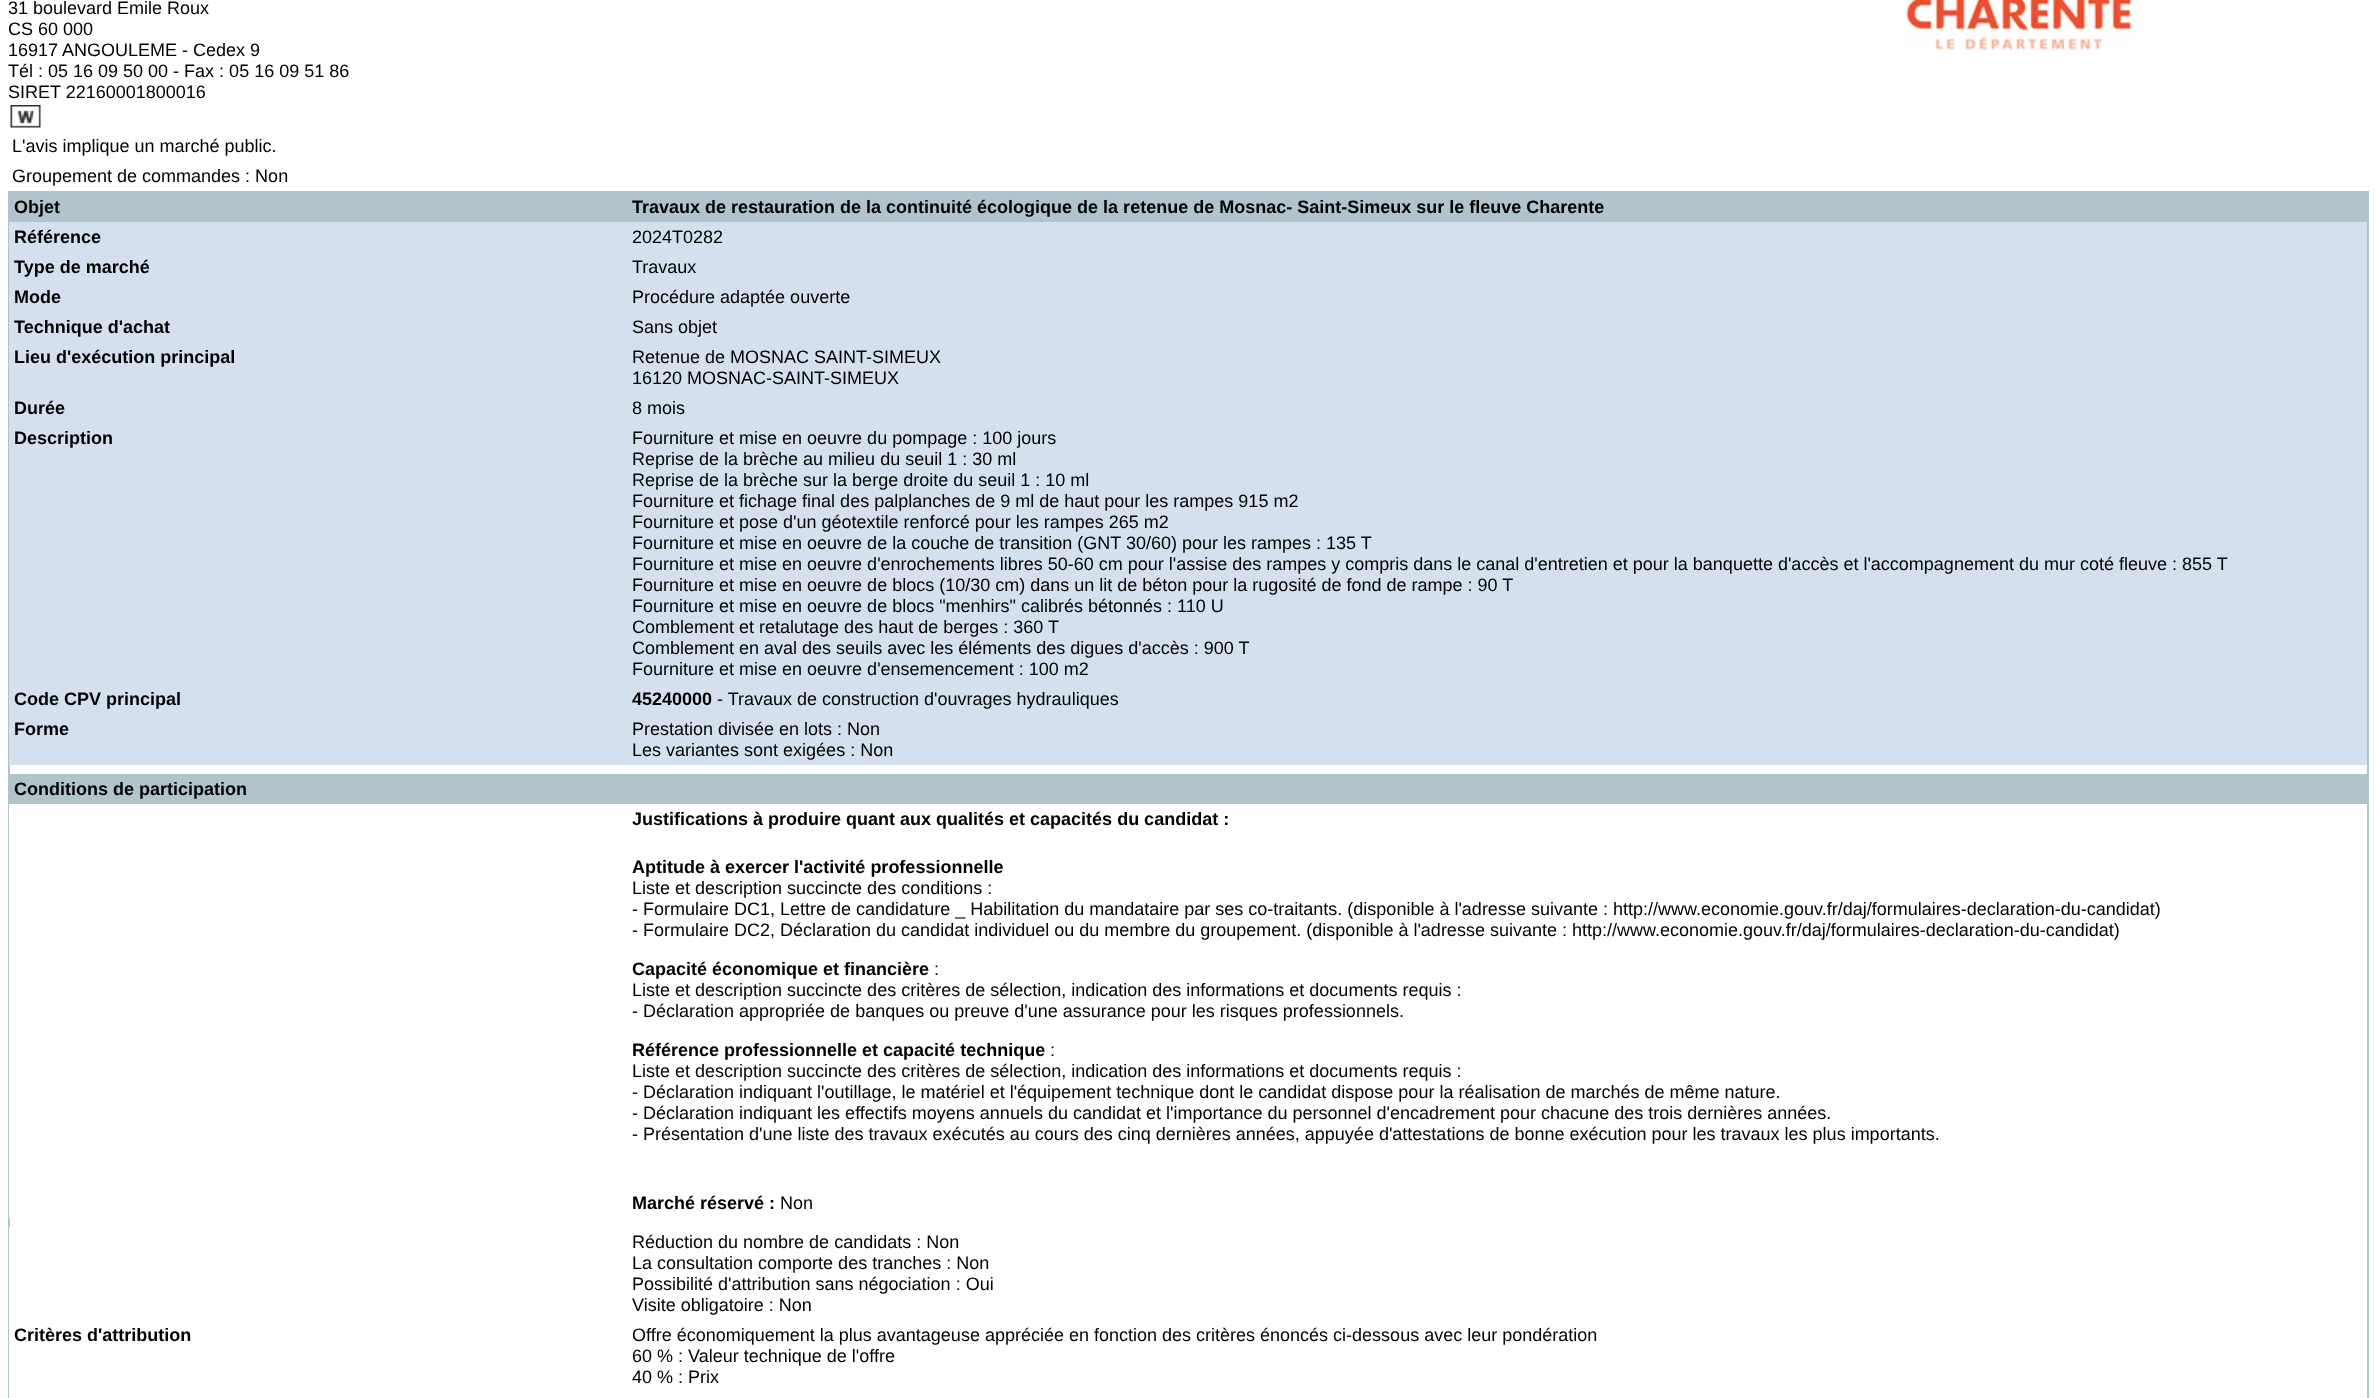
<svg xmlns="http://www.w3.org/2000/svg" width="2375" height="1398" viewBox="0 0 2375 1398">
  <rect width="100%" height="100%" fill="#ffffff"/>
  <text x="8" y="14" font-family="Liberation Sans" font-size="18" fill="#000000">31 boulevard Emile Roux</text>
  <text x="8" y="35" font-family="Liberation Sans" font-size="18" fill="#000000">CS 60 000</text>
  <text x="8" y="56" font-family="Liberation Sans" font-size="18" fill="#000000">16917 ANGOULEME - Cedex 9</text>
  <text x="8" y="77" font-family="Liberation Sans" font-size="18" fill="#000000">Tél : 05 16 09 50 00 - Fax : 05 16 09 51 86</text>
  <text x="8" y="98" font-family="Liberation Sans" font-size="18" fill="#000000">SIRET 22160001800016</text>
  <image x="10" y="105" width="31" height="23" href="img1.png"/>
  <image x="1906" y="0" width="226" height="50" href="img2.png"/>
  <text x="12" y="152" font-family="Liberation Sans" font-size="18" fill="#000000">L'avis implique un marché public.</text>
  <text x="12" y="182" font-family="Liberation Sans" font-size="18" fill="#000000">Groupement de commandes : Non</text>
  <rect x="9" y="192" width="2359" height="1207" fill="none" stroke="#b1c3cb" stroke-width="2"/>
  <rect x="10" y="193" width="2357" height="29" fill="#b1c3cb"/>
  <text x="14" y="213" font-family="Liberation Sans" font-size="18" font-weight="bold" fill="#000000">Objet</text>
  <text x="632" y="213" font-family="Liberation Sans" font-size="18" font-weight="bold" fill="#000000">Travaux de restauration de la continuité écologique de la retenue de Mosnac- Saint-Simeux sur le fleuve Charente</text>
  <rect x="9" y="222" width="2358" height="30" fill="#d4e0ee"/>
  <text x="14" y="243" font-family="Liberation Sans" font-size="18" font-weight="bold" fill="#000000">Référence</text>
  <text x="632" y="243" font-family="Liberation Sans" font-size="18" fill="#000000">2024T0282</text>
  <rect x="9" y="252" width="2358" height="30" fill="#d4e0ee"/>
  <text x="14" y="273" font-family="Liberation Sans" font-size="18" font-weight="bold" fill="#000000">Type de marché</text>
  <text x="632" y="273" font-family="Liberation Sans" font-size="18" fill="#000000">Travaux</text>
  <rect x="9" y="282" width="2358" height="30" fill="#d4e0ee"/>
  <text x="14" y="303" font-family="Liberation Sans" font-size="18" font-weight="bold" fill="#000000">Mode</text>
  <text x="632" y="303" font-family="Liberation Sans" font-size="18" fill="#000000">Procédure adaptée ouverte</text>
  <rect x="9" y="312" width="2358" height="30" fill="#d4e0ee"/>
  <text x="14" y="333" font-family="Liberation Sans" font-size="18" font-weight="bold" fill="#000000">Technique d'achat</text>
  <text x="632" y="333" font-family="Liberation Sans" font-size="18" fill="#000000">Sans objet</text>
  <rect x="9" y="342" width="2358" height="51" fill="#d4e0ee"/>
  <text x="14" y="363" font-family="Liberation Sans" font-size="18" font-weight="bold" fill="#000000">Lieu d'exécution principal</text>
  <text x="632" y="363" font-family="Liberation Sans" font-size="18" fill="#000000">Retenue de MOSNAC SAINT-SIMEUX</text>
  <text x="632" y="384" font-family="Liberation Sans" font-size="18" fill="#000000">16120 MOSNAC-SAINT-SIMEUX</text>
  <rect x="9" y="393" width="2358" height="30" fill="#d4e0ee"/>
  <text x="14" y="414" font-family="Liberation Sans" font-size="18" font-weight="bold" fill="#000000">Durée</text>
  <text x="632" y="414" font-family="Liberation Sans" font-size="18" fill="#000000">8 mois</text>
  <rect x="9" y="423" width="2358" height="261" fill="#d4e0ee"/>
  <text x="14" y="444" font-family="Liberation Sans" font-size="18" font-weight="bold" fill="#000000">Description</text>
  <text x="632" y="444" font-family="Liberation Sans" font-size="18" fill="#000000">Fourniture et mise en oeuvre du pompage : 100 jours</text>
  <text x="632" y="465" font-family="Liberation Sans" font-size="18" fill="#000000">Reprise de la brèche au milieu du seuil 1 : 30 ml</text>
  <text x="632" y="486" font-family="Liberation Sans" font-size="18" fill="#000000">Reprise de la brèche sur la berge droite du seuil 1 : 10 ml</text>
  <text x="632" y="507" font-family="Liberation Sans" font-size="18" fill="#000000">Fourniture et fichage final des palplanches de 9 ml de haut pour les rampes 915 m2</text>
  <text x="632" y="528" font-family="Liberation Sans" font-size="18" fill="#000000">Fourniture et pose d'un géotextile renforcé pour les rampes 265 m2</text>
  <text x="632" y="549" font-family="Liberation Sans" font-size="18" fill="#000000">Fourniture et mise en oeuvre de la couche de transition (GNT 30/60) pour les rampes : 135 T</text>
  <text x="632" y="570" font-family="Liberation Sans" font-size="18" fill="#000000">Fourniture et mise en oeuvre d'enrochements libres 50-60 cm pour l'assise des rampes y compris dans le canal d'entretien et pour la banquette d'accès et l'accompagnement du mur coté fleuve : 855 T</text>
  <text x="632" y="591" font-family="Liberation Sans" font-size="18" fill="#000000">Fourniture et mise en oeuvre de blocs (10/30 cm) dans un lit de béton pour la rugosité de fond de rampe : 90 T</text>
  <text x="632" y="612" font-family="Liberation Sans" font-size="18" fill="#000000">Fourniture et mise en oeuvre de blocs "menhirs" calibrés bétonnés : 110 U</text>
  <text x="632" y="633" font-family="Liberation Sans" font-size="18" fill="#000000">Comblement et retalutage des haut de berges : 360 T</text>
  <text x="632" y="654" font-family="Liberation Sans" font-size="18" fill="#000000">Comblement en aval des seuils avec les éléments des digues d'accès : 900 T</text>
  <text x="632" y="675" font-family="Liberation Sans" font-size="18" fill="#000000">Fourniture et mise en oeuvre d'ensemencement : 100 m2</text>
  <rect x="9" y="684" width="2358" height="30" fill="#d4e0ee"/>
  <text x="14" y="705" font-family="Liberation Sans" font-size="18" font-weight="bold" fill="#000000">Code CPV principal</text>
  <text x="632" y="705" font-family="Liberation Sans" font-size="18" font-weight="bold" fill="#000000">45240000</text>
  <text x="717" y="705" font-family="Liberation Sans" font-size="18" fill="#000000">- Travaux de construction d'ouvrages hydrauliques</text>
  <rect x="9" y="714" width="2358" height="51" fill="#d4e0ee"/>
  <text x="14" y="735" font-family="Liberation Sans" font-size="18" font-weight="bold" fill="#000000">Forme</text>
  <text x="632" y="735" font-family="Liberation Sans" font-size="18" fill="#000000">Prestation divisée en lots : Non</text>
  <text x="632" y="756" font-family="Liberation Sans" font-size="18" fill="#000000">Les variantes sont exigées : Non</text>
  <rect x="10" y="774" width="2357" height="30" fill="#b1c3cb"/>
  <text x="14" y="795" font-family="Liberation Sans" font-size="18" font-weight="bold" fill="#000000">Conditions de participation</text>
  <rect x="9" y="804" width="1" height="414" fill="#ffffff"/>
  <text x="632" y="825" font-family="Liberation Sans" font-size="18" font-weight="bold" fill="#000000">Justifications à produire quant aux qualités et capacités du candidat :</text>
  <text x="632" y="873" font-family="Liberation Sans" font-size="18" font-weight="bold" fill="#000000">Aptitude à exercer l'activité professionnelle</text>
  <text x="632" y="894" font-family="Liberation Sans" font-size="18" fill="#000000">Liste et description succincte des conditions :</text>
  <text x="632" y="915" font-family="Liberation Sans" font-size="18" fill="#000000">- Formulaire DC1, Lettre de candidature _ Habilitation du mandataire par ses co-traitants. (disponible à l'adresse suivante : http://www.economie.gouv.fr/daj/formulaires-declaration-du-candidat)</text>
  <text x="632" y="936" font-family="Liberation Sans" font-size="18" fill="#000000">- Formulaire DC2, Déclaration du candidat individuel ou du membre du groupement. (disponible à l'adresse suivante : http://www.economie.gouv.fr/daj/formulaires-declaration-du-candidat)</text>
  <text x="632" y="975" font-family="Liberation Sans" font-size="18" font-weight="bold" fill="#000000">Capacité économique et financière</text>
  <text x="934" y="975" font-family="Liberation Sans" font-size="18" fill="#000000">:</text>
  <text x="632" y="996" font-family="Liberation Sans" font-size="18" fill="#000000">Liste et description succincte des critères de sélection, indication des informations et documents requis :</text>
  <text x="632" y="1017" font-family="Liberation Sans" font-size="18" fill="#000000">- Déclaration appropriée de banques ou preuve d'une assurance pour les risques professionnels.</text>
  <text x="632" y="1056" font-family="Liberation Sans" font-size="18" font-weight="bold" fill="#000000">Référence professionnelle et capacité technique</text>
  <text x="1050" y="1056" font-family="Liberation Sans" font-size="18" fill="#000000">:</text>
  <text x="632" y="1077" font-family="Liberation Sans" font-size="18" fill="#000000">Liste et description succincte des critères de sélection, indication des informations et documents requis :</text>
  <text x="632" y="1098" font-family="Liberation Sans" font-size="18" fill="#000000">- Déclaration indiquant l'outillage, le matériel et l'équipement technique dont le candidat dispose pour la réalisation de marchés de même nature.</text>
  <text x="632" y="1119" font-family="Liberation Sans" font-size="18" fill="#000000">- Déclaration indiquant les effectifs moyens annuels du candidat et l'importance du personnel d'encadrement pour chacune des trois dernières années.</text>
  <text x="632" y="1140" font-family="Liberation Sans" font-size="18" fill="#000000">- Présentation d'une liste des travaux exécutés au cours des cinq dernières années, appuyée d'attestations de bonne exécution pour les travaux les plus importants.</text>
  <text x="632" y="1209" font-family="Liberation Sans" font-size="18" font-weight="bold" fill="#000000">Marché réservé :</text>
  <text x="780" y="1209" font-family="Liberation Sans" font-size="18" fill="#000000">Non</text>
  <rect x="9" y="1227" width="1" height="171" fill="#ffffff"/>
  <text x="632" y="1248" font-family="Liberation Sans" font-size="18" fill="#000000">Réduction du nombre de candidats : Non</text>
  <text x="632" y="1269" font-family="Liberation Sans" font-size="18" fill="#000000">La consultation comporte des tranches : Non</text>
  <text x="632" y="1290" font-family="Liberation Sans" font-size="18" fill="#000000">Possibilité d'attribution sans négociation : Oui</text>
  <text x="632" y="1311" font-family="Liberation Sans" font-size="18" fill="#000000">Visite obligatoire : Non</text>
  <text x="14" y="1341" font-family="Liberation Sans" font-size="18" font-weight="bold" fill="#000000">Critères d'attribution</text>
  <text x="632" y="1341" font-family="Liberation Sans" font-size="18" fill="#000000">Offre économiquement la plus avantageuse appréciée en fonction des critères énoncés ci-dessous avec leur pondération</text>
  <text x="632" y="1362" font-family="Liberation Sans" font-size="18" fill="#000000">60 % : Valeur technique de l'offre</text>
  <text x="632" y="1383" font-family="Liberation Sans" font-size="18" fill="#000000">40 % : Prix</text>
</svg>
